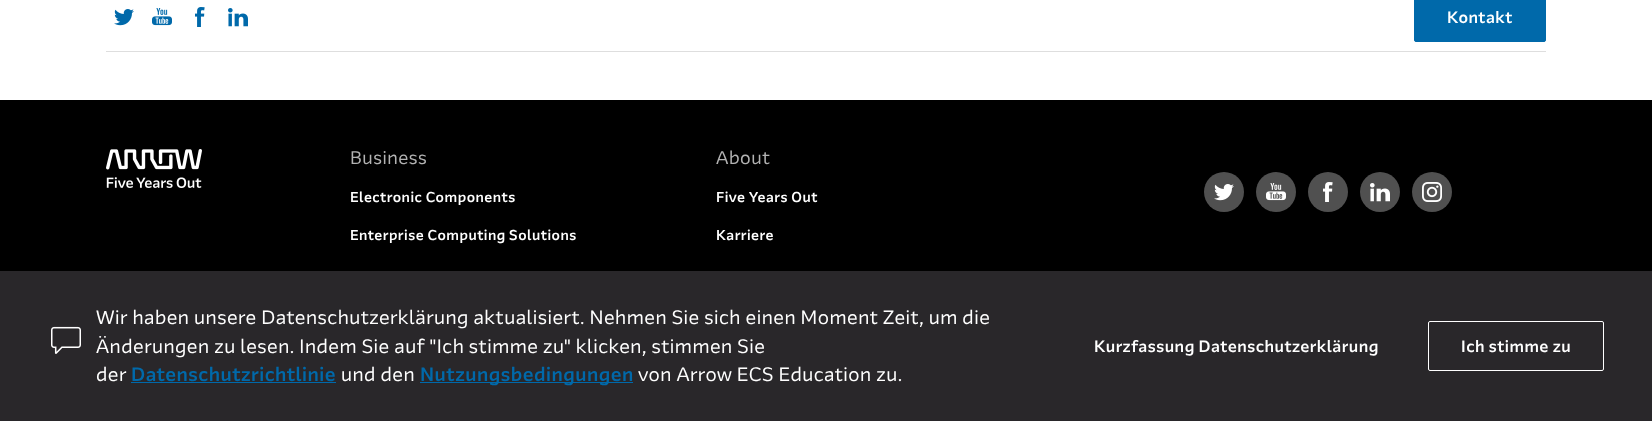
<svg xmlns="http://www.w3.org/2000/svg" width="1652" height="421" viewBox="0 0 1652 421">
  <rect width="100%" height="100%" fill="#ffffff"/>
  <rect x="106" y="51" width="1440" height="1" fill="#dedede"/>
  <image x="114" y="9" width="20" height="17" href="img1.png"/>
  <image x="152" y="8" width="20" height="18" href="img2.png"/>
  <image x="195" y="7" width="10" height="20" href="img3.png"/>
  <image x="228" y="8" width="20" height="19" href="img4.png"/>
  <rect x="1414.5" y="-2.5" width="131" height="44" rx="1.5" fill="#0069aa" stroke="#0069aa"/>
  <text x="1447" y="23" font-family="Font" font-size="16" font-weight="500" letter-spacing="0.5" fill="#ffffff">Kontakt</text>
  <rect x="0" y="100" width="1652" height="171" fill="#000000"/>
  <image x="106" y="149" width="96" height="39" href="img5.png"/>
  <text x="350" y="164" font-family="Font" font-size="18" letter-spacing="0.5" fill="#b3b3b3">Business</text>
  <text x="350" y="202" font-family="Font" font-size="14" font-weight="500" letter-spacing="0.5" fill="#ffffff">Electronic Components</text>
  <text x="350" y="240" font-family="Font" font-size="14" font-weight="500" letter-spacing="0.5" fill="#ffffff">Enterprise Computing Solutions</text>
  <text x="716" y="164" font-family="Font" font-size="18" letter-spacing="0.5" fill="#b3b3b3">About</text>
  <text x="716" y="202" font-family="Font" font-size="14" font-weight="500" letter-spacing="0.5" fill="#ffffff">Five Years Out</text>
  <text x="716" y="240" font-family="Font" font-size="14" font-weight="500" letter-spacing="0.5" fill="#ffffff">Karriere</text>
  <circle cx="1224" cy="192" r="20" fill="#505050"/>
  <image x="1214" y="184" width="20" height="17" href="img6.png"/>
  <circle cx="1276" cy="192" r="20" fill="#505050"/>
  <image x="1266" y="183" width="20" height="18" href="img7.png"/>
  <circle cx="1328" cy="192" r="20" fill="#505050"/>
  <image x="1323" y="182" width="10" height="20" href="img8.png"/>
  <circle cx="1380" cy="192" r="20" fill="#505050"/>
  <image x="1370" y="183" width="20" height="19" href="img9.png"/>
  <circle cx="1432" cy="192" r="20" fill="#505050"/>
  <image x="1422" y="182" width="20" height="20" href="img10.png"/>
  <rect x="0" y="271" width="1652" height="150" fill="#29272a"/>
  <image x="51" y="326" width="30" height="28" href="img11.png"/>
  <text x="96" y="324" font-family="Font" font-size="19" letter-spacing="0.5" fill="#ffffff">Wir haben unsere Datenschutzerklärung aktualisiert. Nehmen Sie sich einen Moment Zeit, um die</text>
  <text x="96" y="353" font-family="Font" font-size="19" letter-spacing="0.5" fill="#ffffff">Änderungen zu lesen. Indem Sie auf "Ich stimme zu" klicken, stimmen Sie</text>
  <text x="96" y="381" font-family="Font" font-size="19" letter-spacing="0.5" fill="#ffffff">der</text>
  <text x="131" y="381" font-family="Font" font-size="19" font-weight="500" letter-spacing="0.5" fill="#0069aa">Datenschutzrichtlinie</text>
  <rect x="131" y="382" width="205" height="1" fill="#0069aa"/>
  <text x="341" y="381" font-family="Font" font-size="19" letter-spacing="0.5" fill="#ffffff">und den</text>
  <rect x="420" y="382" width="213" height="1" fill="#0069aa"/>
  <text x="420" y="381" font-family="Font" font-size="19" font-weight="500" letter-spacing="0.5" fill="#0069aa">Nutzungsbedingungen</text>
  <text x="638" y="381" font-family="Font" font-size="19" letter-spacing="0.5" fill="#ffffff">von Arrow ECS Education zu.</text>
  <text x="1094" y="352" font-family="Font" font-size="16" font-weight="500" letter-spacing="0.5" fill="#ffffff">Kurzfassung Datenschutzerklärung</text>
  <rect x="1428.5" y="321.5" width="175" height="49" rx="1.5" fill="none" stroke="#ffffff"/>
  <text x="1461" y="352" font-family="Font" font-size="16" font-weight="500" letter-spacing="0.5" fill="#ffffff">Ich stimme zu</text>
</svg>
